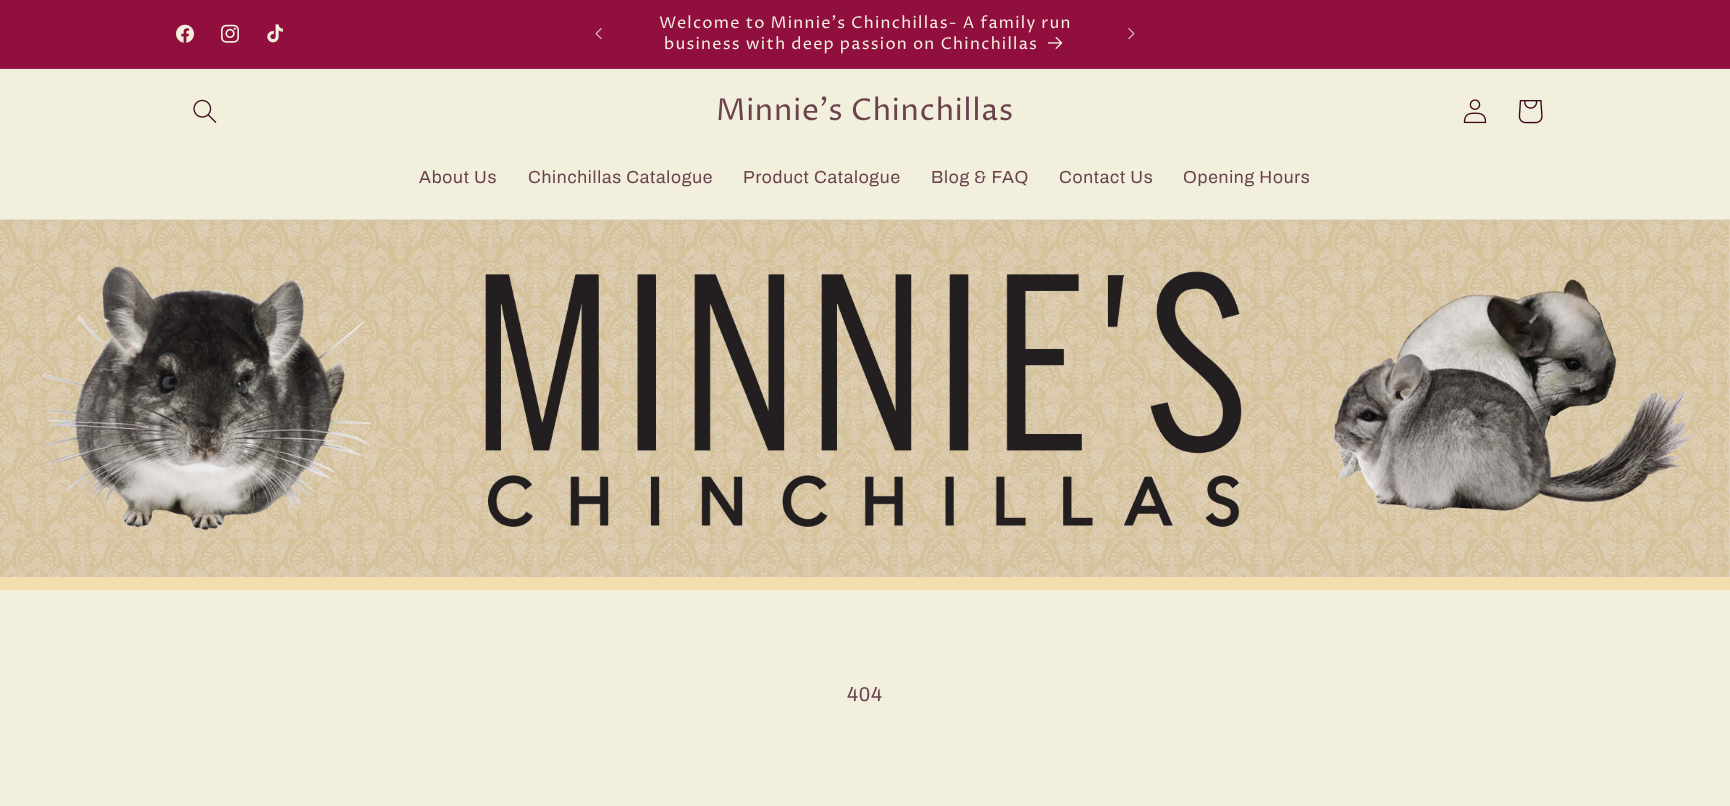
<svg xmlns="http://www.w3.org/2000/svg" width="1730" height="806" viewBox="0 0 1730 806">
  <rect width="100%" height="100%" fill="#f2efdd"/>
  <rect x="0" y="0" width="1730" height="68" fill="#910f3f"/>
  <rect x="0" y="68" width="1730" height="1" fill="#99214c"/>
  <image x="176" y="24" width="18" height="19" href="img1.png"/>
  <image x="221" y="24" width="18" height="19" href="img2.png"/>
  <image x="267" y="24" width="16" height="19" href="img3.png"/>
  <image x="595" y="28" width="7" height="12" href="img4.png"/>
  <text x="659" y="28" font-family="Proza Libre" font-size="16.25" letter-spacing="1.25" fill="#f2efdd">Welcome to Minnie's Chinchillas- A family run</text>
  <text x="664" y="49" font-family="Proza Libre" font-size="16.25" letter-spacing="1.25" fill="#f2efdd">business with deep passion on Chinchillas</text>
  <image x="1048" y="36" width="15" height="13" href="img5.png"/>
  <image x="1128" y="28" width="7" height="12" href="img6.png"/>
  <rect x="0" y="219" width="1730" height="1" fill="#e4ddcd"/>
  <image x="193" y="99" width="24" height="24" href="img7.png"/>
  <text x="716" y="120" font-family="Proza Libre" font-size="30" letter-spacing="0.75" fill="#6a424c">Minnie's Chinchillas</text>
  <image x="1463" y="99" width="24" height="25" href="img8.png"/>
  <image x="1518" y="100" width="25" height="24" href="img9.png"/>
  <text x="419" y="183" font-family="Archivo" font-size="17.5" letter-spacing="0.75" fill="#6a424c">About Us</text>
  <text x="528" y="183" font-family="Archivo" font-size="17.5" letter-spacing="0.75" fill="#6a424c">Chinchillas Catalogue</text>
  <text x="743" y="183" font-family="Archivo" font-size="17.5" letter-spacing="0.75" fill="#6a424c">Product Catalogue</text>
  <text x="931" y="183" font-family="Archivo" font-size="17.5" letter-spacing="0.75" fill="#6a424c">Blog &amp; FAQ</text>
  <text x="1059" y="183" font-family="Archivo" font-size="17.5" letter-spacing="0.75" fill="#6a424c">Contact Us</text>
  <text x="1183" y="183" font-family="Archivo" font-size="17.5" letter-spacing="0.75" fill="#6a424c">Opening Hours</text>
  <rect x="0" y="577" width="1730" height="13" fill="#f2deac"/>
  <image x="0" y="220" width="1730" height="358" href="img10.png"/>
  <text x="847" y="701" font-family="Archivo" font-size="20" letter-spacing="0.75" fill="#6a424c">404</text>
</svg>
